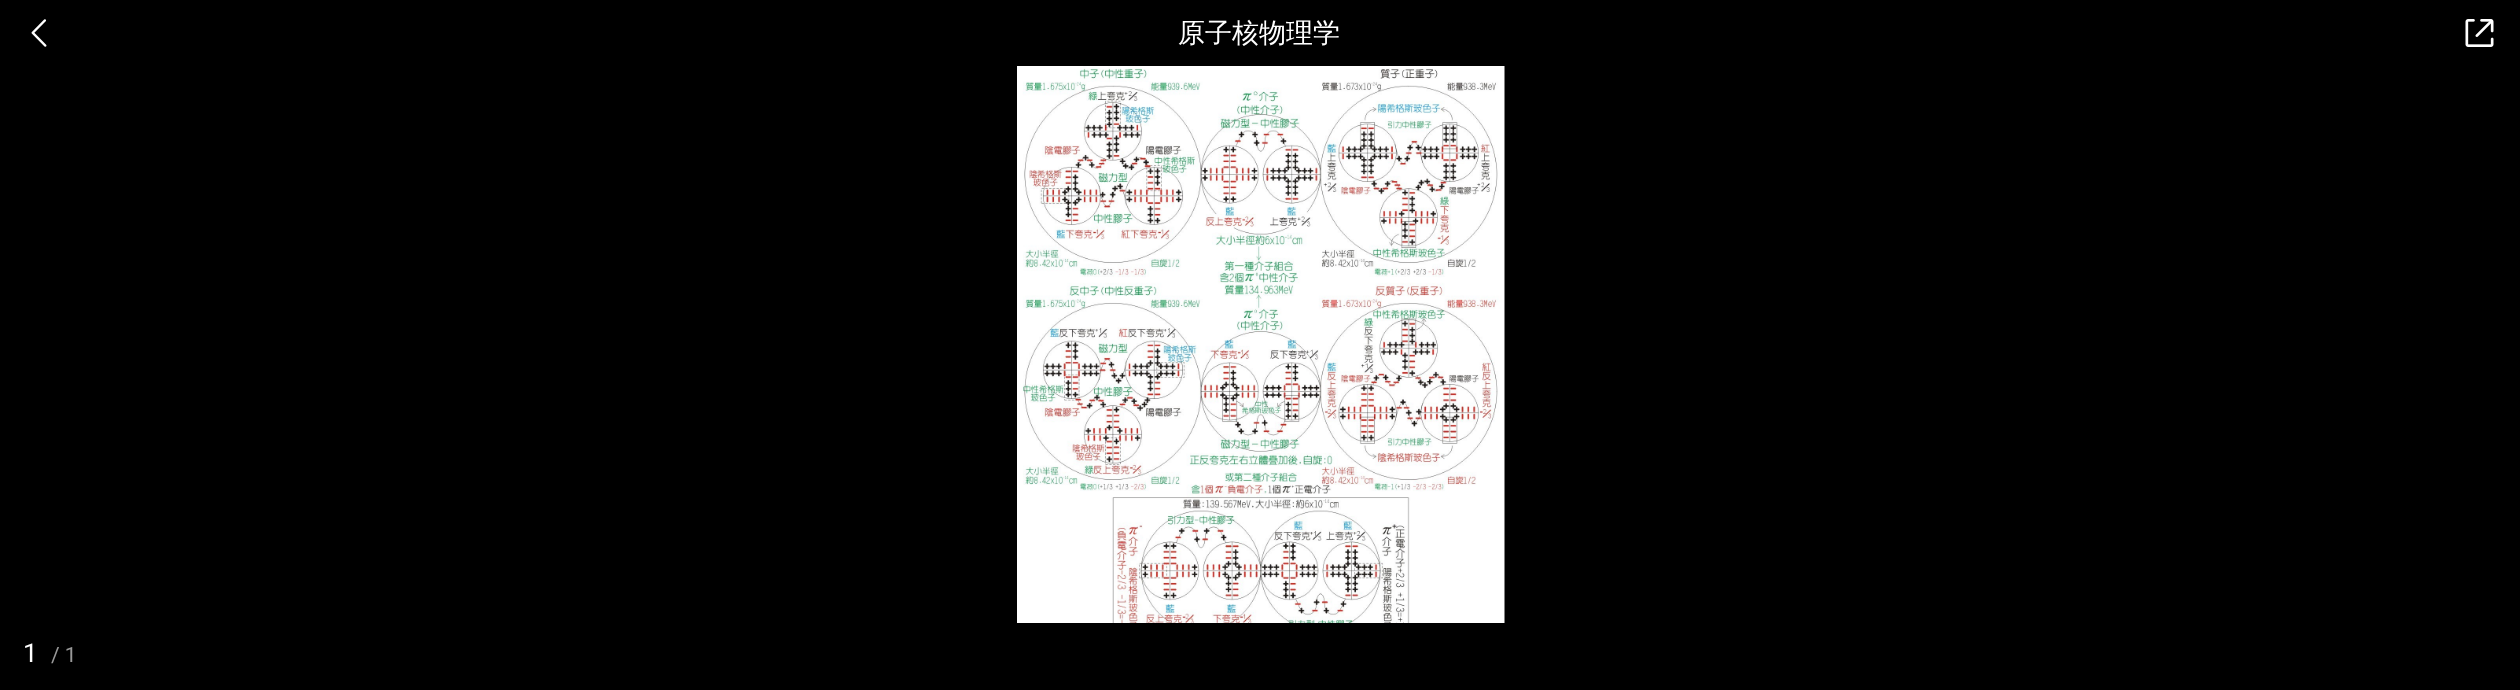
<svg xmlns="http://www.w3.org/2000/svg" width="2520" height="690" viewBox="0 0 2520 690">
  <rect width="100%" height="100%" fill="#000000"/>
  <image x="31" y="19" width="16" height="28" href="img1.png"/>
  <text x="1178" y="42" font-family="WenQuanYi Zen Hei" font-size="27" font-weight="500" fill="#ffffff">原子核物理学</text>
  <image x="2465" y="19" width="29" height="28" href="img2.png"/>
  <image x="1017" y="66" width="488" height="557" href="img3.png"/>
  <text x="23" y="662" font-family="Roboto" font-size="26" fill="#ffffff">1</text>
  <text x="51" y="662" font-family="Roboto" font-size="21" fill="#999999">/ 1</text>
</svg>
